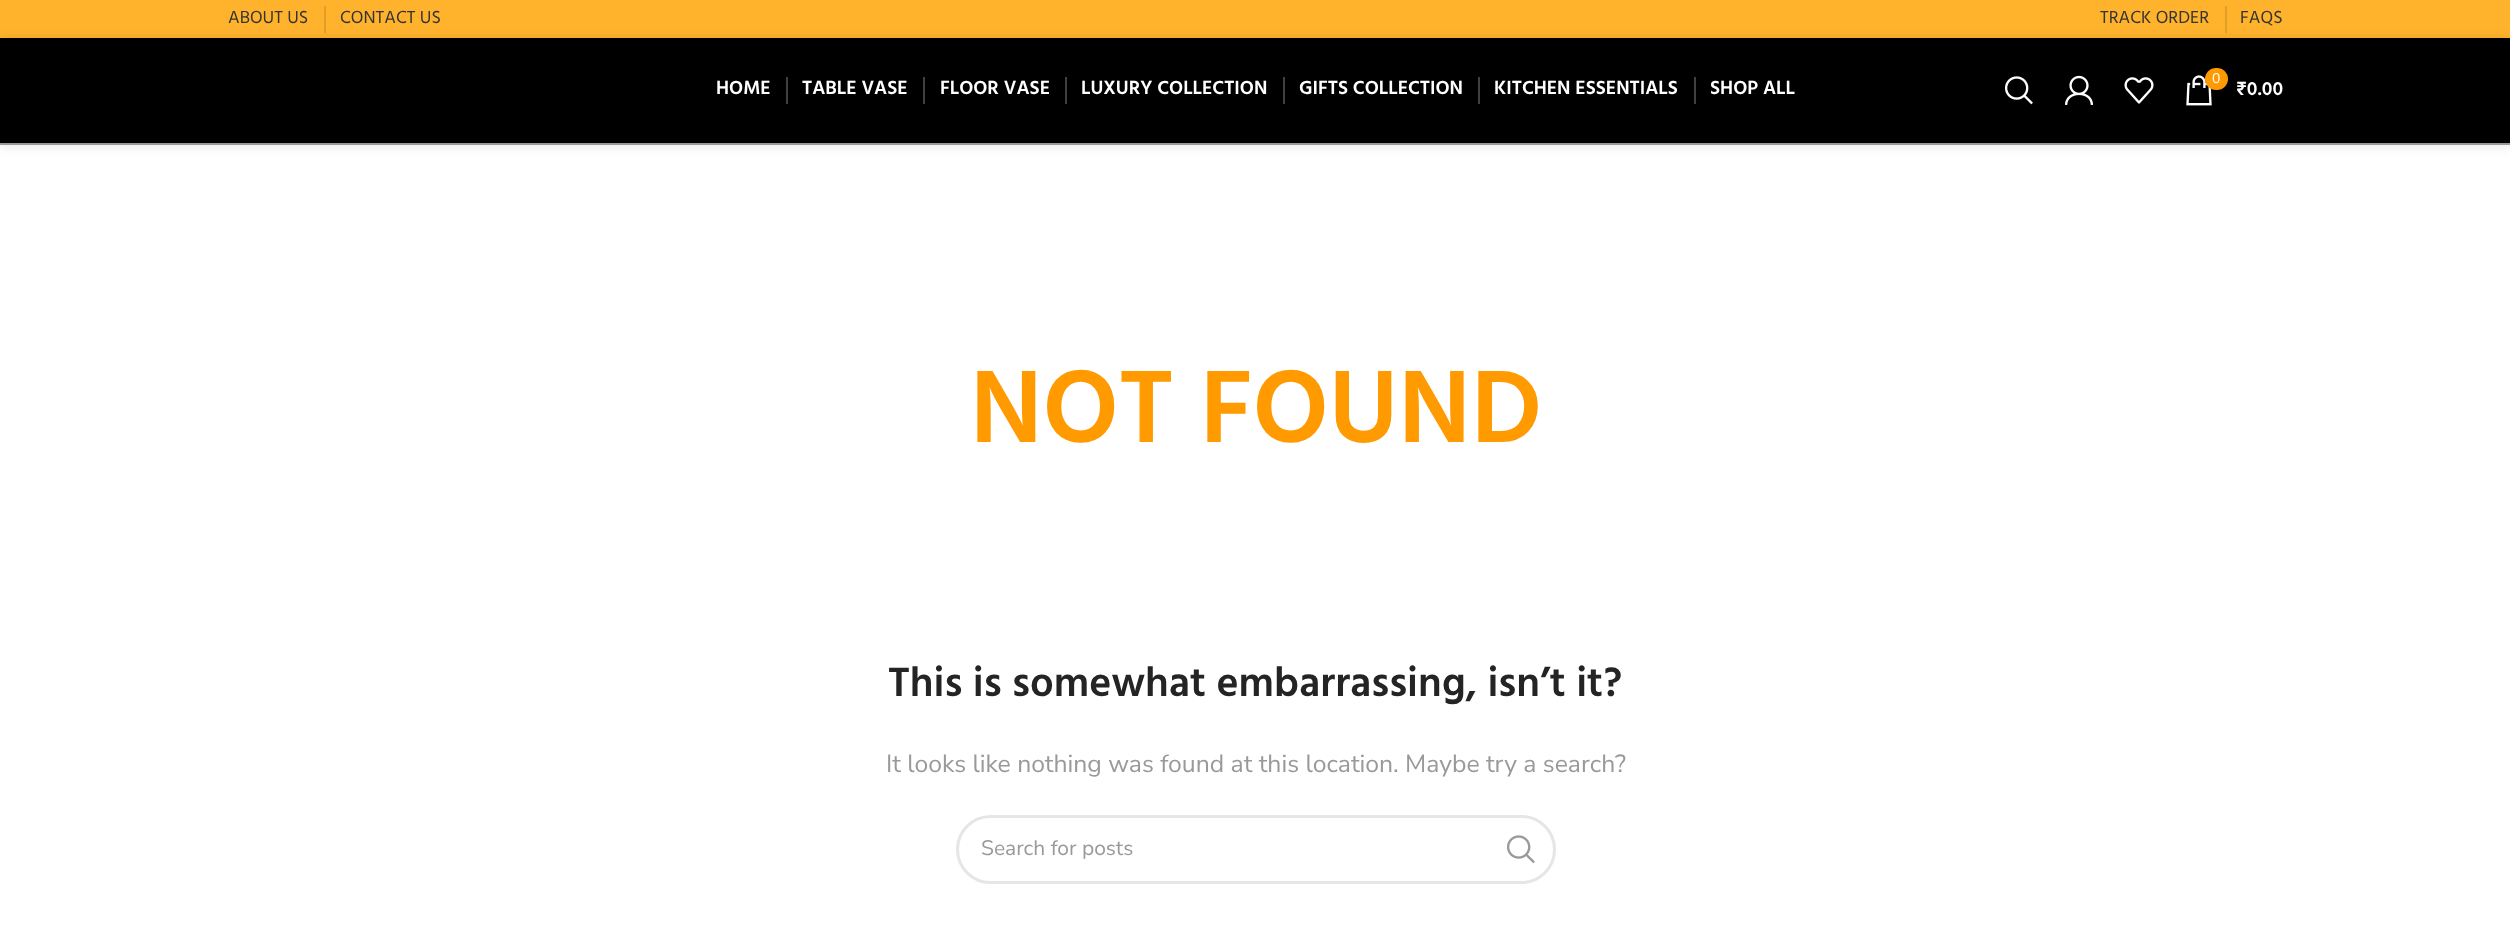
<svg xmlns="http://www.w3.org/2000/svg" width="2510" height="941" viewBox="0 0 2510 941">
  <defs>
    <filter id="blur1" x="-50%" y="-200%" width="200%" height="500%"><feGaussianBlur stdDeviation="6"/></filter>
  </defs>
  <rect width="100%" height="100%" fill="#ffffff"/>
  <rect x="0" y="0" width="2510" height="38" fill="#ffb22c"/>
  <rect x="0" y="39" width="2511" height="107" fill="#000000" fill-opacity="0.1" filter="url(#blur1)"/>
  <text x="228" y="23" font-family="Hind" font-size="18" fill="#333333">ABOUT US</text>
  <rect x="324" y="6" width="2" height="27" fill="#000000" fill-opacity="0.11"/>
  <text x="340" y="23" font-family="Hind" font-size="18" fill="#333333">CONTACT US</text>
  <text x="2100" y="23" font-family="Hind" font-size="18" fill="#333333">TRACK ORDER</text>
  <rect x="2225" y="6" width="2" height="27" fill="#000000" fill-opacity="0.11"/>
  <text x="2240" y="23" font-family="Hind" font-size="18" fill="#333333">FAQS</text>
  <rect x="0" y="38" width="2510" height="105" fill="#000000"/>
  <rect x="0" y="143" width="2510" height="2" fill="#999999"/>
  <text x="716" y="94" font-family="Hind" font-size="19.5" font-weight="600" fill="#ffffff">HOME</text>
  <rect x="786" y="77" width="2" height="27" fill="#404040"/>
  <text x="802" y="94" font-family="Hind" font-size="19.5" font-weight="600" fill="#ffffff">TABLE VASE</text>
  <rect x="923" y="77" width="2" height="27" fill="#404040"/>
  <text x="940" y="94" font-family="Hind" font-size="19.5" font-weight="600" fill="#ffffff">FLOOR VASE</text>
  <rect x="1065" y="77" width="2" height="27" fill="#404040"/>
  <text x="1081" y="94" font-family="Hind" font-size="19.5" font-weight="600" fill="#ffffff">LUXURY COLLECTION</text>
  <rect x="1283" y="77" width="2" height="27" fill="#404040"/>
  <text x="1299" y="94" font-family="Hind" font-size="19.5" font-weight="600" fill="#ffffff">GIFTS COLLECTION</text>
  <rect x="1478" y="77" width="2" height="27" fill="#404040"/>
  <text x="1494" y="94" font-family="Hind" font-size="19.5" font-weight="600" fill="#ffffff">KITCHEN ESSENTIALS</text>
  <rect x="1694" y="77" width="2" height="27" fill="#404040"/>
  <text x="1710" y="94" font-family="Hind" font-size="19.5" font-weight="600" fill="#ffffff">SHOP ALL</text>
  <image x="2005" y="76" width="28" height="29" href="img1.png"/>
  <image x="2065" y="75" width="28" height="30" href="img2.png"/>
  <image x="2124" y="77" width="30" height="27" href="img3.png"/>
  <image x="2186" y="75" width="26" height="31" href="img4.png"/>
  <rect x="2205" y="68" width="23" height="22" rx="11" fill="#ff9a00"/>
  <text x="2212" y="83" font-family="Nunito Sans" font-size="14" fill="#ffffff">0</text>
  <text x="2236" y="95" font-family="Hind" font-size="19.5" font-weight="600" fill="#ffffff">₹0.00</text>
  <text x="970" y="442" font-family="Hind" font-size="105.5" font-weight="600" fill="#ff9a00">NOT FOUND</text>
  <text x="888" y="696" font-family="Hind" font-size="42" font-weight="600" fill="#242424">This is somewhat embarrassing, isn’t it?</text>
  <text x="886" y="772" font-family="Nunito Sans" font-size="24.75" fill="#999999">It looks like nothing was found at this location. Maybe try a search?</text>
  <rect x="957.5" y="816.5" width="597" height="66" rx="33" fill="none" stroke="#e6e6e6" stroke-width="3"/>
  <text x="981" y="855" font-family="Nunito Sans" font-size="21" fill="#999999">Search for posts</text>
  <image x="1507" y="835" width="28" height="29" href="img5.png"/>
</svg>
